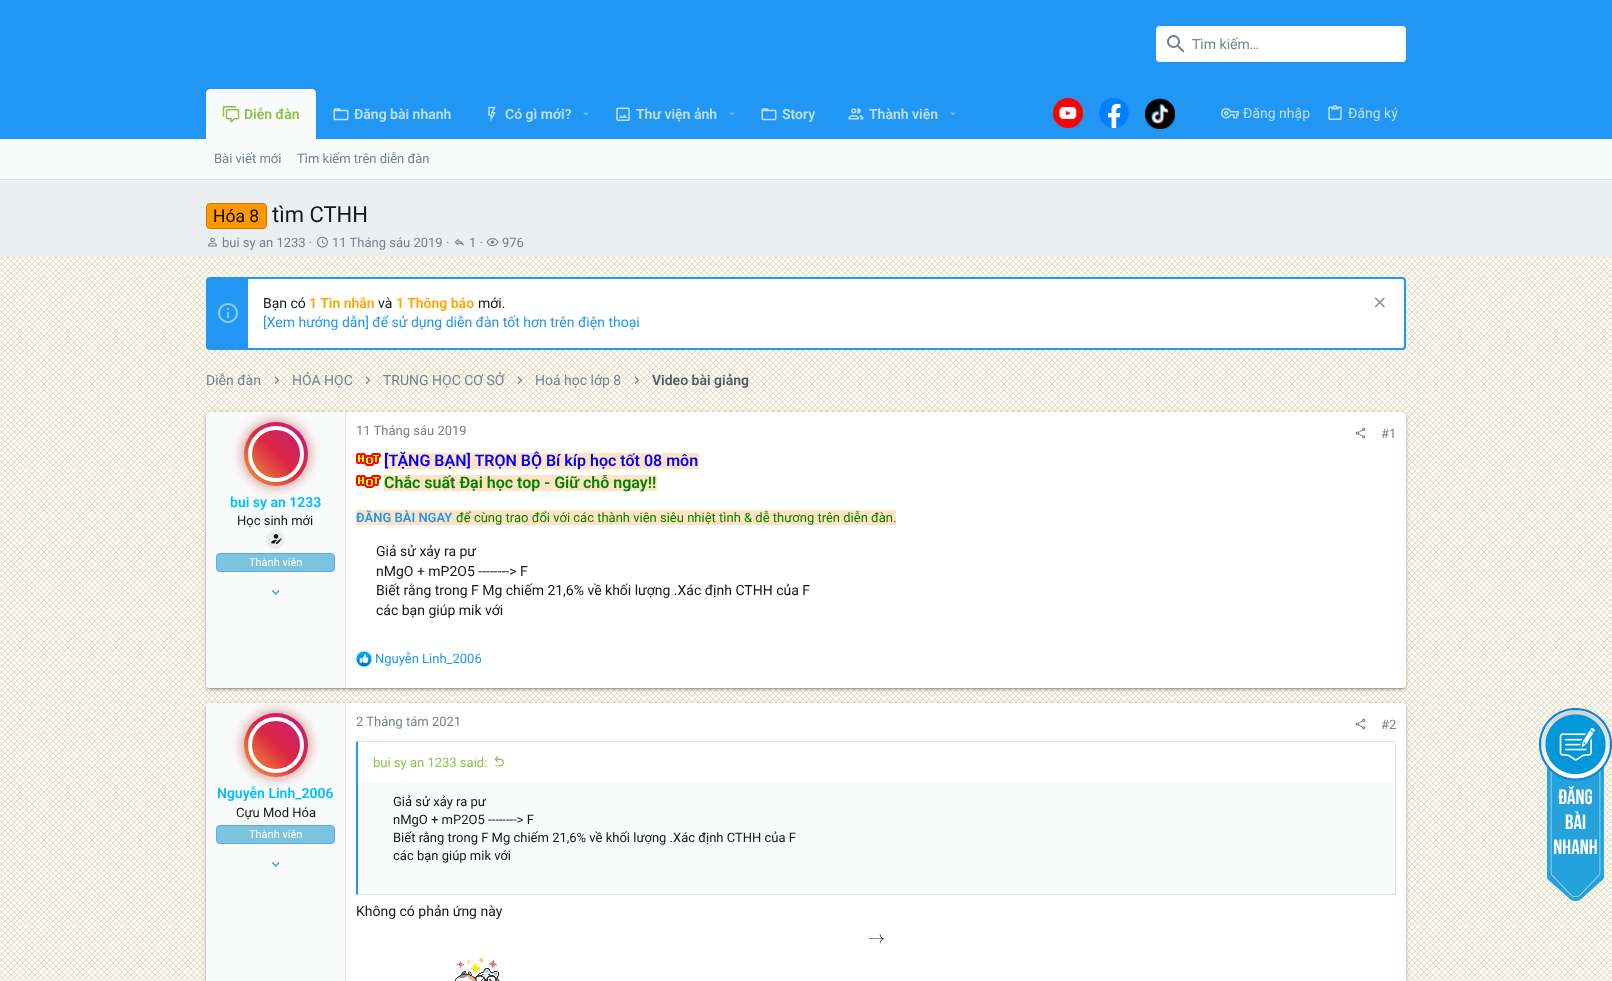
<svg xmlns="http://www.w3.org/2000/svg" width="1612" height="981" viewBox="0 0 1612 981">
  <defs>
    <filter id="blur1" x="-50%" y="-200%" width="200%" height="500%"><feGaussianBlur stdDeviation="2.5"/></filter>
    <filter id="blur2" x="-50%" y="-200%" width="200%" height="500%"><feGaussianBlur stdDeviation="0.5"/></filter>
    <filter id="blur3" x="-50%" y="-200%" width="200%" height="500%"><feGaussianBlur stdDeviation="1"/></filter>
    <filter id="blur4" x="-50%" y="-200%" width="200%" height="500%"><feGaussianBlur stdDeviation="5"/></filter>
    <linearGradient id="g1" gradientUnits="userSpaceOnUse" x1="244" y1="486" x2="308" y2="422"><stop offset="0" stop-color="#f09433"/><stop offset="0.25" stop-color="#e6683c"/><stop offset="0.5" stop-color="#dc2743"/><stop offset="0.75" stop-color="#cc2366"/><stop offset="1" stop-color="#bc1888"/></linearGradient>
    <linearGradient id="g2" gradientUnits="userSpaceOnUse" x1="244" y1="777" x2="308" y2="713"><stop offset="0" stop-color="#f09433"/><stop offset="0.25" stop-color="#e6683c"/><stop offset="0.5" stop-color="#dc2743"/><stop offset="0.75" stop-color="#cc2366"/><stop offset="1" stop-color="#bc1888"/></linearGradient>
  </defs>
  <rect width="100%" height="100%" fill="#eceff1"/>
  <rect x="0" y="0" width="1612" height="139" fill="#2196f3"/>
  <rect x="1156" y="26" width="250" height="36" rx="4" fill="#ffffff"/>
  <image x="1167" y="35" width="18" height="18" href="img1.png"/>
  <text x="1192" y="49" font-family="Roboto" font-size="14" fill="#76818d">Tìm kiếm…</text>
  <path d="M210 89H312C314 89 316 91 316 93V139H206V93C206 91 208 89 210 89Z" fill="#f9fafa"/>
  <image x="222" y="106" width="18" height="17" href="img2.png"/>
  <text x="244" y="119" font-family="Roboto" font-size="14" font-weight="600" fill="#8bc34a">Diễn đàn</text>
  <image x="333" y="108" width="16" height="13" href="img3.png"/>
  <text x="354" y="119" font-family="Roboto" font-size="14" font-weight="600" fill="#bce0fb">Đăng bài nhanh</text>
  <image x="488" y="106" width="8" height="16" href="img4.png"/>
  <text x="505" y="119" font-family="Roboto" font-size="14" font-weight="600" fill="#bce0fb">Có gì mới?</text>
  <path d="M583 112.5L586 115.5L589 112.5Z" fill="#6fbbf7"/>
  <image x="616" y="107" width="14" height="14" href="img5.png"/>
  <text x="636" y="119" font-family="Roboto" font-size="14" font-weight="600" fill="#bce0fb">Thư viện ảnh</text>
  <path d="M729 112.5L732 115.5L735 112.5Z" fill="#6fbbf7"/>
  <image x="761" y="108" width="16" height="13" href="img3.png"/>
  <text x="782" y="119" font-family="Roboto" font-size="14" font-weight="600" fill="#bce0fb">Story</text>
  <image x="848" y="108" width="16" height="12" href="img6.png"/>
  <text x="869" y="119" font-family="Roboto" font-size="14" font-weight="600" fill="#bce0fb">Thành viên</text>
  <path d="M950 112.5L953 115.5L956 112.5Z" fill="#6fbbf7"/>
  <image x="1053" y="98" width="30" height="30" href="img7.png"/>
  <image x="1099" y="98" width="30" height="30" href="img8.png"/>
  <image x="1145" y="98" width="30" height="31" href="img9.png"/>
  <image x="1221" y="108" width="18" height="11" href="img10.png"/>
  <text x="1243" y="118" font-family="Roboto" font-size="14" fill="#bce0fb">Đăng nhập</text>
  <image x="1328" y="105" width="14" height="15" href="img11.png"/>
  <text x="1348" y="118" font-family="Roboto" font-size="14" fill="#bce0fb">Đăng ký</text>
  <rect x="0" y="139" width="1612" height="40" fill="#f9fafa"/>
  <rect x="0" y="179" width="1612" height="1" fill="#e0e0e0"/>
  <text x="214" y="163" font-family="Roboto" font-size="13" fill="#76818d">Bài viết mới</text>
  <text x="297" y="163" font-family="Roboto" font-size="13" fill="#76818d">Tìm kiếm trên diễn đàn</text>
  <rect x="206.5" y="203.5" width="60" height="25" rx="3.5" fill="#ff9800" stroke="#cc7a00"/>
  <text x="213" y="222" font-family="Roboto" font-size="17.5" fill="#000000">Hóa 8</text>
  <text x="272" y="222" font-family="Roboto" font-size="22" fill="#141618">tìm CTHH</text>
  <image x="208" y="237" width="9" height="10" href="img12.png"/>
  <text x="222" y="247" font-family="Roboto" font-size="13" fill="#76818d">bui sy an 1233 ·</text>
  <image x="317" y="236" width="11" height="12" href="img13.png"/>
  <text x="332" y="247" font-family="Roboto" font-size="13" fill="#76818d">11 Tháng sáu 2019 ·</text>
  <image x="454" y="238" width="11" height="9" href="img14.png"/>
  <text x="469" y="247" font-family="Roboto" font-size="13" fill="#76818d">1 ·</text>
  <image x="486" y="238" width="13" height="9" href="img15.png"/>
  <text x="502" y="247" font-family="Roboto" font-size="13" fill="#76818d">976</text>
  <image x="0" y="257" width="1612" height="724" href="img16.png"/>
  <rect x="207" y="278" width="1198" height="71" rx="3" fill="#ffffff" stroke="#2196f3" stroke-width="2"/>
  <rect x="208" y="279" width="40" height="69" fill="#2196f3"/>
  <image x="218" y="303" width="20" height="20" href="img17.png"/>
  <text x="263" y="308" font-family="Roboto" font-size="14" fill="#141618">Bạn có</text>
  <text x="309" y="308" font-family="Roboto" font-size="14" font-weight="600" fill="#ffa500">1 Tin nhắn</text>
  <text x="378" y="308" font-family="Roboto" font-size="14" fill="#141618">và</text>
  <text x="396" y="308" font-family="Roboto" font-size="14" font-weight="600" fill="#ffa500">1 Thông báo</text>
  <text x="478" y="308" font-family="Roboto" font-size="14" fill="#141618">mới.</text>
  <image x="1374" y="297" width="11" height="11" href="img18.png"/>
  <text x="263" y="327" font-family="Roboto" font-size="14" fill="#2196f3">[Xem hướng dẫn] để sử dụng diễn đàn tốt hơn trên điện thoại</text>
  <text x="206" y="385" font-family="Roboto" font-size="14" fill="#76818d">Diễn đàn</text>
  <image x="274" y="376" width="6" height="8" href="img19.png"/>
  <text x="292" y="385" font-family="Roboto" font-size="14" fill="#76818d">HÓA HỌC</text>
  <image x="365" y="376" width="6" height="8" href="img20.png"/>
  <text x="383" y="385" font-family="Roboto" font-size="14" fill="#76818d">TRUNG HỌC CƠ SỞ</text>
  <image x="517" y="376" width="6" height="8" href="img21.png"/>
  <text x="535" y="385" font-family="Roboto" font-size="14" fill="#76818d">Hoá học lớp 8</text>
  <image x="634" y="376" width="6" height="8" href="img22.png"/>
  <text x="652" y="385" font-family="Roboto" font-size="14" font-weight="600" fill="#535b63">Video bài giảng</text>
  <rect x="206" y="413" width="1200" height="276" rx="4" fill="#000000" fill-opacity="0.2" filter="url(#blur1)"/>
  <rect x="208" y="417" width="1196" height="272" rx="2" fill="#000000" fill-opacity="0.12" filter="url(#blur2)"/>
  <rect x="206" y="414" width="1200" height="276" rx="4" fill="#000000" fill-opacity="0.14" filter="url(#blur3)"/>
  <rect x="206" y="412" width="1200" height="276" rx="4" fill="#ffffff"/>
  <path d="M209 412H346V688H209C207.5 688 206 686.5 206 685V415C206 413.5 207.5 412 209 412Z" fill="#f9fafa"/>
  <rect x="345" y="412" width="1" height="276" fill="#e0e0e0"/>
  <rect x="241" y="419" width="70" height="70" rx="35" fill="#b22222" fill-opacity="0.38" filter="url(#blur4)"/>
  <circle cx="276" cy="454" r="32" fill="url(#g1)"/>
  <circle cx="276" cy="454" r="26" fill="none" stroke="#ffffff" stroke-width="4"/>
  <text x="230" y="507" font-family="Roboto" font-size="14" font-weight="600" fill="#00bfff">bui sy an 1233</text>
  <text x="237" y="525" font-family="Roboto" font-size="13" fill="#141618">Học sinh mới</text>
  <circle cx="275.5" cy="539.5" r="9.5" fill="#ebecee"/>
  <image x="271" y="534" width="11" height="10" href="img23.png"/>
  <rect x="216.5" y="553.5" width="118" height="18" rx="3.5" fill="#7cc3e0" stroke="#53b0d6"/>
  <text x="249" y="566" font-family="Roboto" font-size="11" fill="#ffffff">Thành viên</text>
  <image x="272" y="590" width="8" height="5" href="img24.png"/>
  <text x="356" y="435" font-family="Roboto" font-size="13" fill="#76818d">11 Tháng sáu 2019</text>
  <image x="1355" y="427" width="11" height="12" href="img25.png"/>
  <text x="1381" y="438" font-family="Roboto" font-size="13" fill="#76818d">#1</text>
  <image x="356" y="453" width="25" height="13" href="img26.png"/>
  <rect x="384" y="453" width="315" height="16" fill="#ffe4c4"/>
  <text x="384" y="466" font-family="Roboto" font-size="16" font-weight="600" fill="#0000ff">[TẶNG BẠN] TRỌN BỘ Bí kíp học tốt 08 môn</text>
  <image x="356" y="475" width="25" height="13" href="img26.png"/>
  <rect x="384" y="475" width="273" height="16" fill="#ffe4c4"/>
  <text x="384" y="488" font-family="Roboto" font-size="16" font-weight="600" fill="#008000">Chắc suất Đại học top - Giữ chỗ ngay!!</text>
  <rect x="356" y="510" width="540" height="15" fill="#ffe4c4"/>
  <text x="356" y="522" font-family="Roboto" font-size="13" font-weight="600" fill="#2196f3">ĐĂNG BÀI NGAY</text>
  <text x="456" y="522" font-family="Roboto" font-size="13" fill="#008000">để cùng trao đổi với các thành viên siêu nhiệt tình &amp; dễ thương trên diễn đàn.</text>
  <text x="376" y="556" font-family="Roboto" font-size="14" fill="#141618">Giả sử xảy ra pư</text>
  <text x="376" y="576" font-family="Roboto" font-size="14" fill="#141618">nMgO + mP2O5 --------&gt; F</text>
  <text x="376" y="595" font-family="Roboto" font-size="14" fill="#141618">Biết rằng trong F Mg chiếm 21,6% về khối lượng .Xác định CTHH của F</text>
  <text x="376" y="615" font-family="Roboto" font-size="14" fill="#141618">các bạn giúp mik với</text>
  <circle cx="364" cy="659" r="10" fill="#f9fafa"/>
  <image x="356" y="651" width="16" height="16" href="img27.png"/>
  <text x="375" y="663" font-family="Roboto" font-size="13" fill="#2196f3">Nguyễn Linh_2006</text>
  <rect x="206" y="704" width="1200" height="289" rx="4" fill="#000000" fill-opacity="0.2" filter="url(#blur1)"/>
  <rect x="206" y="705" width="1200" height="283" rx="4" fill="#000000" fill-opacity="0.14" filter="url(#blur3)"/>
  <rect x="206" y="703" width="1200" height="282" rx="4" fill="#ffffff"/>
  <path d="M209 703H346V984H209C207.5 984 206 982.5 206 981V706C206 704.5 207.5 703 209 703Z" fill="#f9fafa"/>
  <rect x="345" y="703" width="1" height="278" fill="#e0e0e0"/>
  <rect x="241" y="710" width="70" height="70" rx="35" fill="#b22222" fill-opacity="0.38" filter="url(#blur4)"/>
  <circle cx="276" cy="745" r="32" fill="url(#g2)"/>
  <circle cx="276" cy="745" r="26" fill="none" stroke="#ffffff" stroke-width="4"/>
  <text x="217" y="798" font-family="Roboto" font-size="14" font-weight="600" fill="#00bfff">Nguyễn Linh_2006</text>
  <text x="236" y="817" font-family="Roboto" font-size="13" fill="#141618">Cựu Mod Hóa</text>
  <rect x="216.5" y="825.5" width="118" height="18" rx="3.5" fill="#7cc3e0" stroke="#53b0d6"/>
  <text x="249" y="838" font-family="Roboto" font-size="11" fill="#ffffff">Thành viên</text>
  <image x="272" y="862" width="8" height="5" href="img24.png"/>
  <text x="356" y="726" font-family="Roboto" font-size="13" fill="#76818d">2 Tháng tám 2021</text>
  <image x="1355" y="718" width="11" height="12" href="img25.png"/>
  <text x="1381" y="729" font-family="Roboto" font-size="13" fill="#76818d">#2</text>
  <rect x="358" y="783" width="1037" height="111" fill="#f9fafa"/>
  <path d="M356 741H1396L1395 742H358Z" fill="#e0e0e0"/>
  <rect x="1395" y="741" width="1" height="154" fill="#e0e0e0"/>
  <path d="M1396 895H356L358 894H1395Z" fill="#e0e0e0"/>
  <path d="M356 895V741L358 742V894Z" fill="#2196f3"/>
  <text x="373" y="767" font-family="Roboto" font-size="13" fill="#8bc34a">bui sy an 1233 said:</text>
  <image x="494" y="756" width="10" height="11" href="img28.png"/>
  <text x="393" y="806" font-family="Roboto" font-size="13" fill="#141618">Giả sử xảy ra pư</text>
  <text x="393" y="824" font-family="Roboto" font-size="13" fill="#141618">nMgO + mP2O5 --------&gt; F</text>
  <text x="393" y="842" font-family="Roboto" font-size="13" fill="#141618">Biết rằng trong F Mg chiếm 21,6% về khối lượng .Xác định CTHH của F</text>
  <text x="393" y="860" font-family="Roboto" font-size="13" fill="#141618">các bạn giúp mik với</text>
  <text x="356" y="916" font-family="Roboto" font-size="14" fill="#141618">Không có phản ứng này</text>
  <text x="868" y="943" font-family="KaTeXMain" font-size="17" fill="#141618">→</text>
  <image x="455" y="957" width="44" height="24" href="img29.png"/>
  <image x="1539" y="708" width="73" height="193" href="img30.png"/>
</svg>
